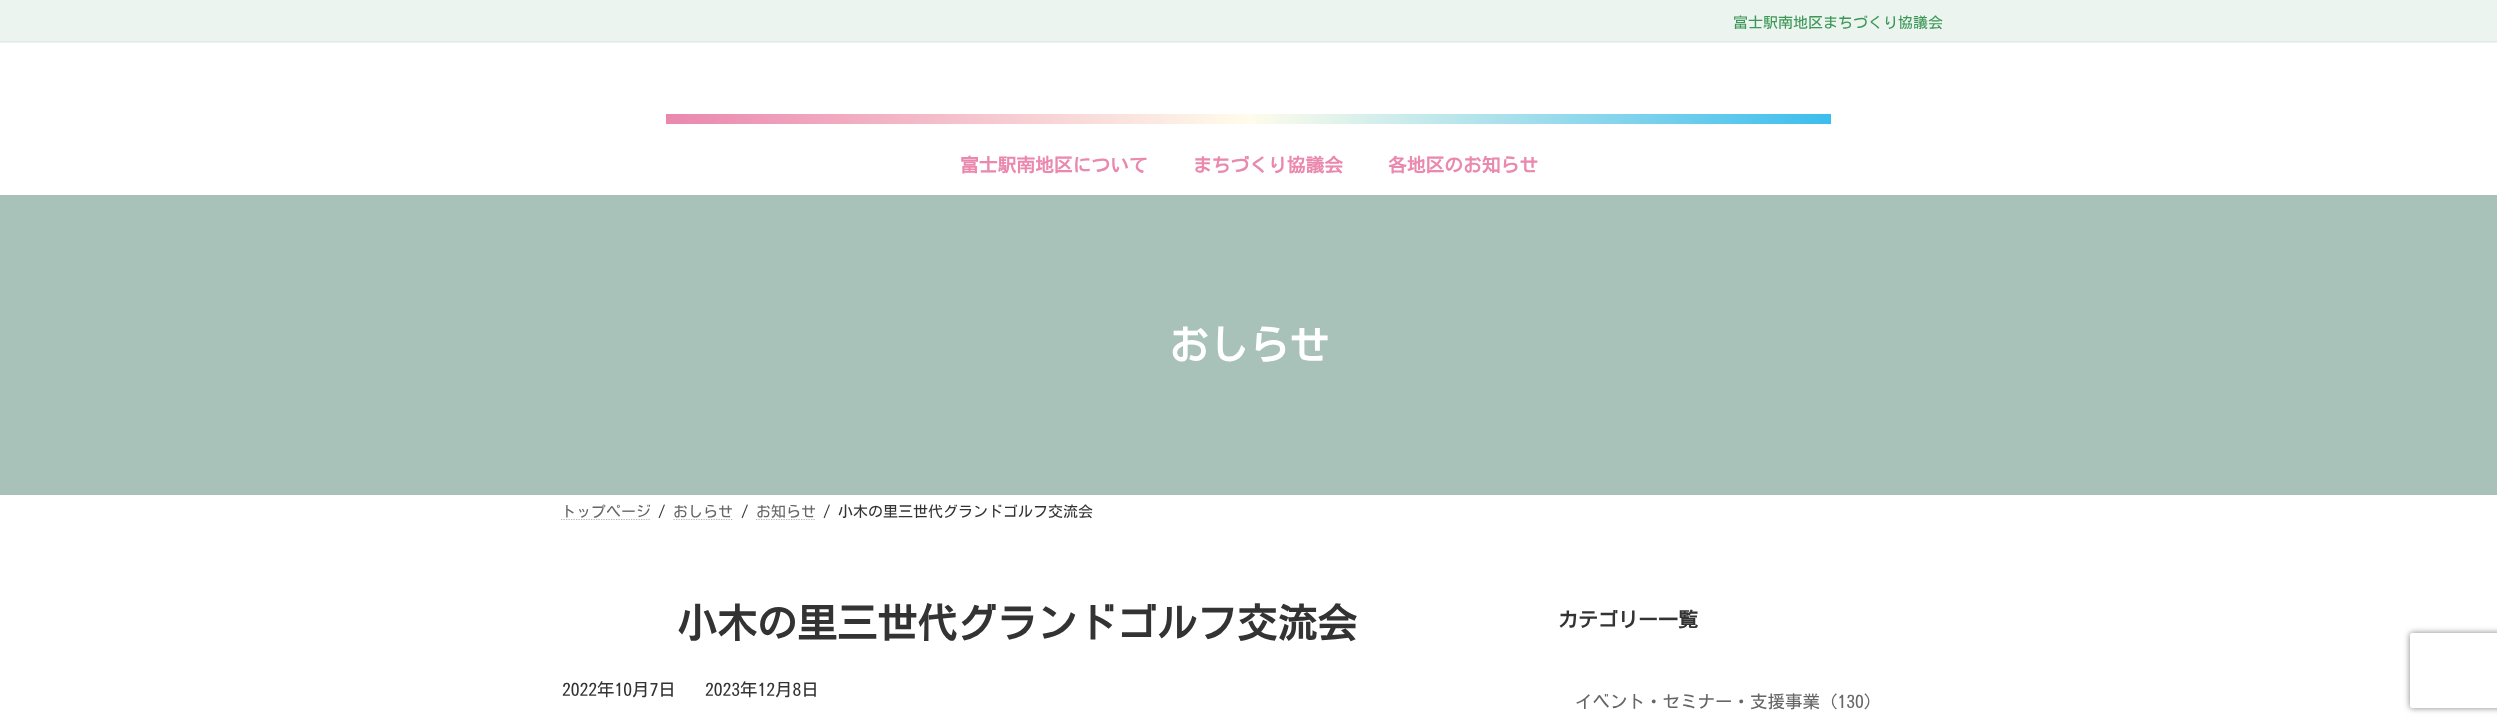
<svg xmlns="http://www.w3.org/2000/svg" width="2497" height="724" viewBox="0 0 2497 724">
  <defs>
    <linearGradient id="g1" gradientUnits="userSpaceOnUse" x1="666" y1="119" x2="1831" y2="119"><stop offset="0" stop-color="#ea87ae"/><stop offset="0.5" stop-color="#fffceb"/><stop offset="1" stop-color="#3cbded"/></linearGradient>
    <clipPath id="clip1"><path d="M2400 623H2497V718H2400ZM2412.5 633H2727.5C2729 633 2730 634 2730 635.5V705.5C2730 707 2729 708 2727.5 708H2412.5C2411 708 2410 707 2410 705.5V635.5C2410 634 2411 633 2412.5 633Z" clip-rule="evenodd"/></clipPath>
    <filter id="blur1" x="-50%" y="-200%" width="200%" height="500%"><feGaussianBlur stdDeviation="3"/></filter>
  </defs>
  <rect width="100%" height="100%" fill="#ffffff"/>
  <rect x="0" y="0" width="2497" height="43" fill="#ebf4ee"/>
  <rect x="0" y="41" width="2497" height="1" fill="#e2eae4"/>
  <text x="1733" y="28" font-family="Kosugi" font-size="15" fill="#3e9759">富士駅南地区まちづくり協議会</text>
  <rect x="666" y="114" width="1165" height="10" fill="url(#g1)"/>
  <text x="960" y="172" font-family="Kosugi" font-size="18.75" font-weight="bold" fill="#ea88ae">富士駅南地区について</text>
  <text x="1193" y="172" font-family="Kosugi" font-size="18.75" font-weight="bold" fill="#ea88ae">まちづくり協議会</text>
  <text x="1388" y="172" font-family="Kosugi" font-size="18.75" font-weight="bold" fill="#ea88ae">各地区のお知らせ</text>
  <rect x="0" y="195" width="2497" height="300" fill="#a8c2b9"/>
  <text x="1169" y="360" font-family="Kosugi" font-size="40" font-weight="bold" fill="#ffffff">おしらせ</text>
  <text x="561" y="517" font-family="Kosugi" font-size="15" fill="#666666">トップページ</text>
  <path d="M561 519.5H651" fill="none" stroke="#b3b3b3" stroke-width="1.2" stroke-dasharray="1.25 1.25"/>
  <text x="658" y="517" font-family="Kosugi" font-size="15" fill="#333333">/</text>
  <text x="673" y="517" font-family="Kosugi" font-size="15" fill="#666666">おしらせ</text>
  <path d="M673.5 519.5H733.5" fill="none" stroke="#b3b3b3" stroke-width="1.2" stroke-dasharray="1.25 1.25"/>
  <text x="741" y="517" font-family="Kosugi" font-size="15" fill="#333333">/</text>
  <text x="756" y="517" font-family="Kosugi" font-size="15" fill="#666666">お知らせ</text>
  <path d="M756 519.5H816" fill="none" stroke="#b3b3b3" stroke-width="1.2" stroke-dasharray="1.25 1.25"/>
  <text x="823" y="517" font-family="Kosugi" font-size="15" fill="#333333">/ 小木の里三世代グランドゴルフ交流会</text>
  <text x="677" y="638" font-family="Kosugi" font-size="40" font-weight="bold" fill="#333333">小木の里三世代グランドゴルフ交流会</text>
  <text x="562" y="696" font-family="Kosugi" font-size="17.5" fill="#333333">2022年10月7日</text>
  <text x="705" y="696" font-family="Kosugi" font-size="17.5" fill="#333333">2023年12月8日</text>
  <text x="1558" y="627" font-family="Kosugi" font-size="20" font-weight="bold" fill="#333333">カテゴリー一覧</text>
  <text x="1575" y="708" font-family="Kosugi" font-size="17.5" fill="#666666">イベント・セミナー・支援事業 (130)</text>
  <g clip-path="url(#clip1)">
    <rect x="2410" y="633" width="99" height="75" rx="2.5" fill="#808080" filter="url(#blur1)"/>
  </g>
</svg>
